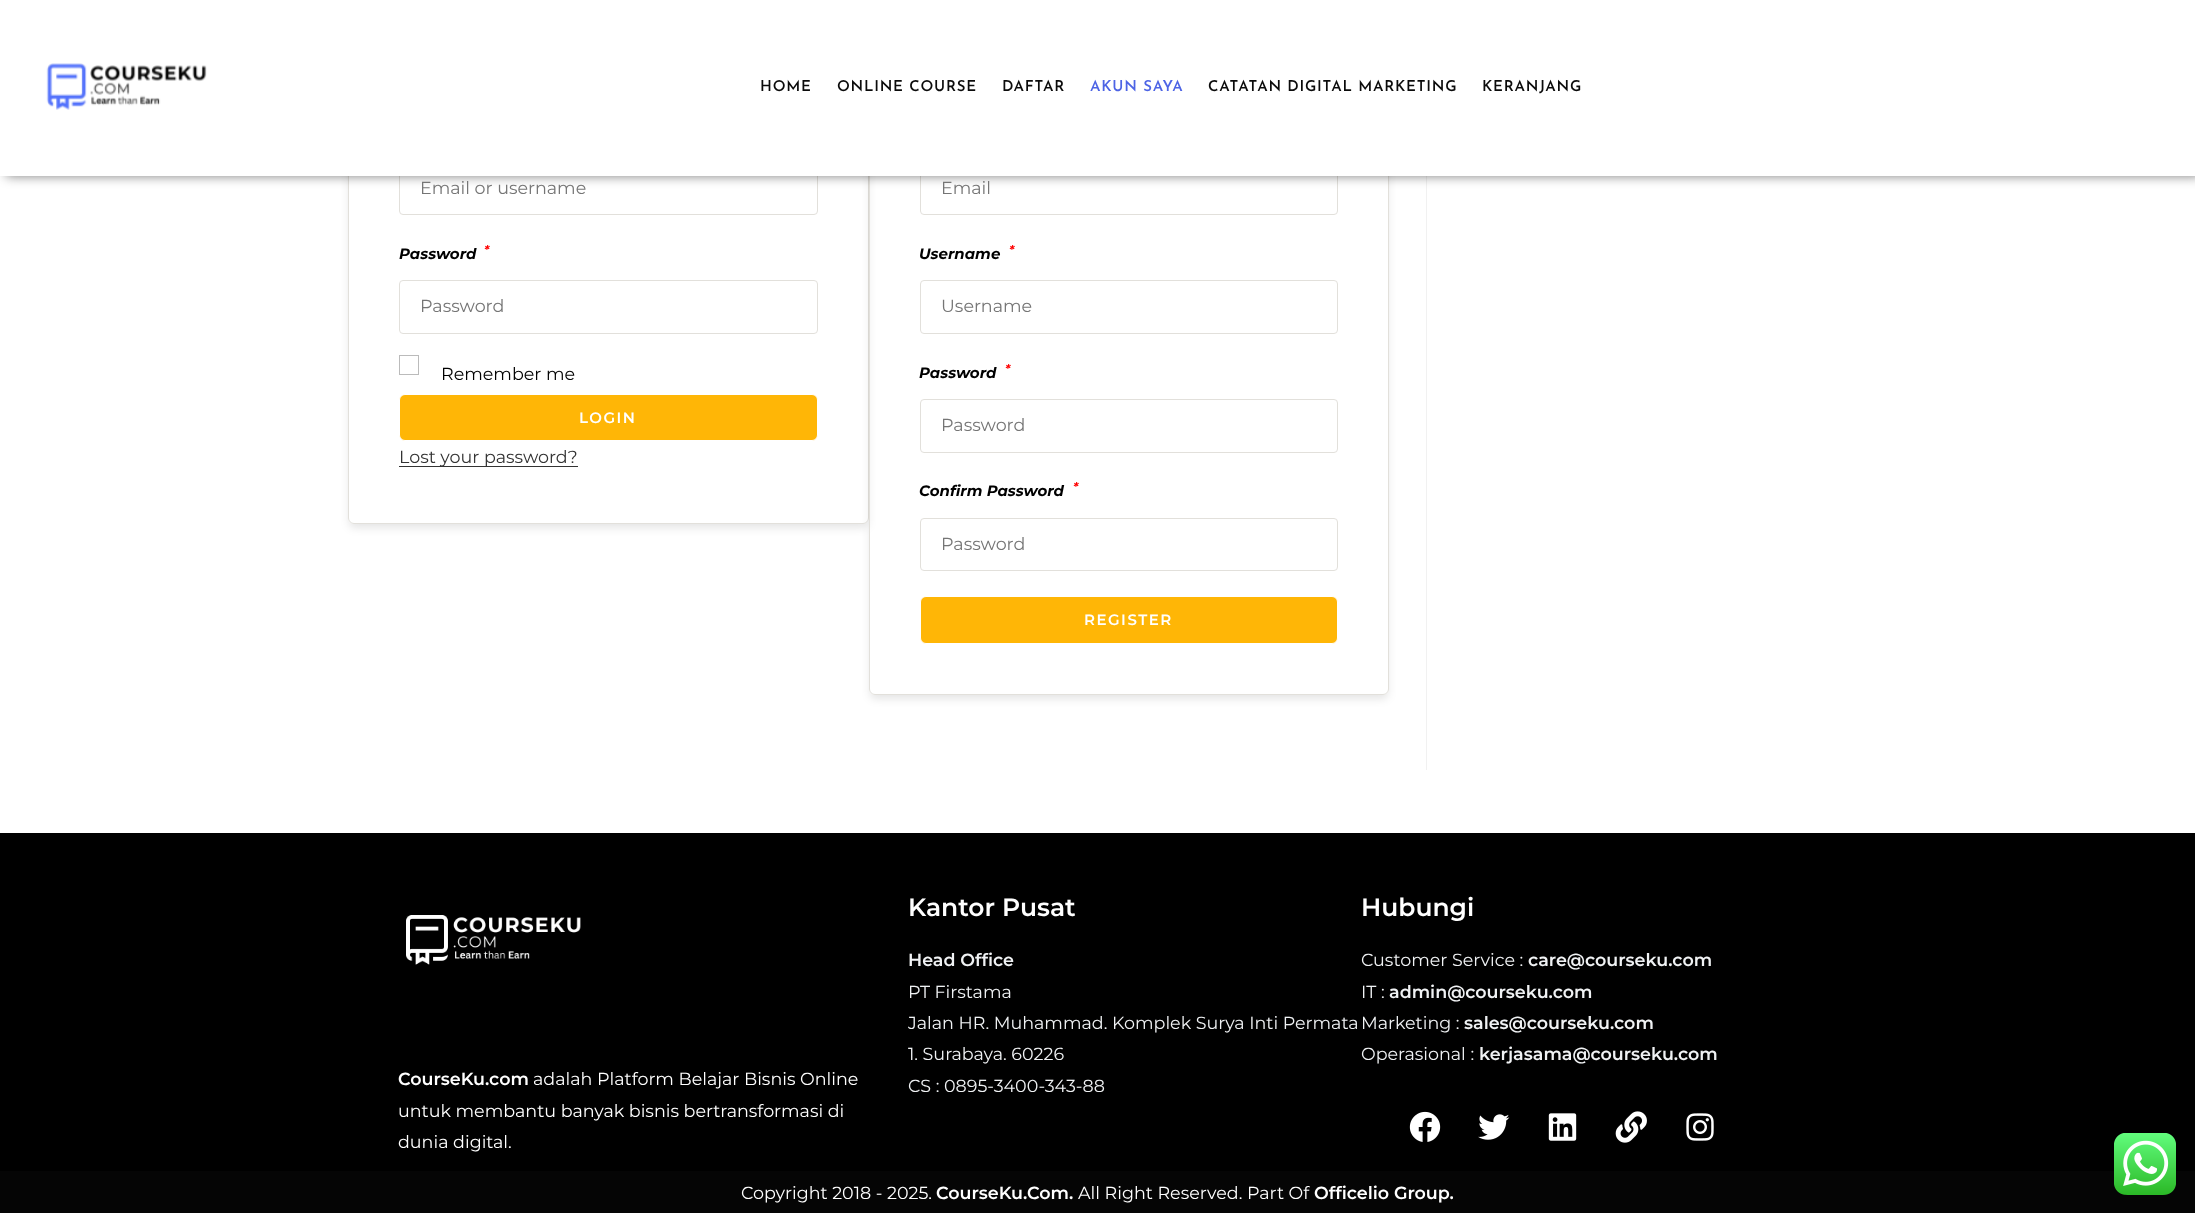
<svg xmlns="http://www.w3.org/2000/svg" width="2195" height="1213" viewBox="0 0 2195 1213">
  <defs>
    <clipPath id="clip1"><path d="M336 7H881V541H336ZM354 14H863C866.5 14 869 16.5 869 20V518C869 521.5 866.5 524 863 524H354C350.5 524 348 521.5 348 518V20C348 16.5 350.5 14 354 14Z" clip-rule="evenodd"/></clipPath>
    <filter id="blur1" x="-50%" y="-200%" width="200%" height="500%"><feGaussianBlur stdDeviation="4"/></filter>
    <clipPath id="clip2"><path d="M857 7H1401V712H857ZM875 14H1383C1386.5 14 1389 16.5 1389 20V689C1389 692.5 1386.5 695 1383 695H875C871.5 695 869 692.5 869 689V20C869 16.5 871.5 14 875 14Z" clip-rule="evenodd"/></clipPath>
    <filter id="blur2" x="-50%" y="-200%" width="200%" height="500%"><feGaussianBlur stdDeviation="6"/></filter>
  </defs>
  <rect width="100%" height="100%" fill="#ffffff"/>
  <rect x="1426" y="176" width="1" height="594" fill="#f1f1f1"/>
  <g clip-path="url(#clip1)">
    <rect x="349" y="20" width="519" height="508" rx="5" fill="#000000" fill-opacity="0.1" filter="url(#blur1)"/>
  </g>
  <rect x="348.5" y="14.5" width="520" height="509" rx="5.5" fill="none" stroke="#e2e0db"/>
  <rect x="399.5" y="161.5" width="418" height="53" rx="3.5" fill="none" stroke="#e2e0db"/>
  <g clip-path="url(#clip2)">
    <rect x="870" y="20" width="518" height="679" rx="5" fill="#000000" fill-opacity="0.1" filter="url(#blur1)"/>
  </g>
  <rect x="869.5" y="14.5" width="519" height="680" rx="5.5" fill="none" stroke="#e2e0db"/>
  <rect x="920.5" y="161.5" width="417" height="53" rx="3.5" fill="none" stroke="#e2e0db"/>
  <rect x="6" y="0" width="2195" height="176" fill="#000000" fill-opacity="0.5" filter="url(#blur2)"/>
  <rect x="0" y="0" width="2195" height="176" fill="#ffffff"/>
  <image x="46" y="63" width="161" height="47" href="img1.png"/>
  <text x="760" y="91" font-family="Josefin Sans" font-size="15" font-weight="600" letter-spacing="0.75" fill="#0b0b0b">HOME</text>
  <text x="837" y="91" font-family="Josefin Sans" font-size="15" font-weight="600" letter-spacing="0.75" fill="#0b0b0b">ONLINE COURSE</text>
  <text x="1002" y="91" font-family="Josefin Sans" font-size="15" font-weight="600" letter-spacing="0.75" fill="#0b0b0b">DAFTAR</text>
  <text x="1090" y="91" font-family="Josefin Sans" font-size="15" font-weight="600" letter-spacing="0.75" fill="#4d64e5">AKUN SAYA</text>
  <text x="1208" y="91" font-family="Josefin Sans" font-size="15" font-weight="600" letter-spacing="0.75" fill="#0b0b0b">CATATAN DIGITAL MARKETING</text>
  <text x="1482" y="91" font-family="Josefin Sans" font-size="15" font-weight="600" letter-spacing="0.75" fill="#0b0b0b">KERANJANG</text>
  <text x="420" y="194" font-family="Montserrat" font-size="17.5" fill="#757575">Email or username</text>
  <text x="399" y="259" font-family="Montserrat" font-size="15" font-weight="bold" font-style="italic" fill="#000000">Password</text>
  <text x="484" y="254" font-family="Montserrat" font-size="12" font-weight="bold" font-style="italic" fill="#ff0000">*</text>
  <rect x="399.5" y="280.5" width="418" height="53" rx="3.5" fill="none" stroke="#e2e0db"/>
  <text x="420" y="312" font-family="Montserrat" font-size="17.5" fill="#757575">Password</text>
  <rect x="399.5" y="355.5" width="19" height="19" fill="none" stroke="#bbbbbb"/>
  <text x="441" y="380" font-family="Montserrat" font-size="17.5" fill="#000000">Remember me</text>
  <rect x="399.5" y="394.5" width="418" height="46" rx="5.5" fill="#ffb606" stroke="#ffffff"/>
  <text x="579" y="423" font-family="Montserrat" font-size="15" font-weight="600" letter-spacing="1.5" fill="#ffffff">LOGIN</text>
  <rect x="399" y="466" width="179" height="1" fill="#333333"/>
  <text x="399" y="463" font-family="Montserrat" font-size="17.5" fill="#333333">Lost your password?</text>
  <text x="941" y="194" font-family="Montserrat" font-size="17.5" fill="#757575">Email</text>
  <text x="1009" y="254" font-family="Montserrat" font-size="12" font-weight="bold" font-style="italic" fill="#ff0000">*</text>
  <text x="919" y="259" font-family="Montserrat" font-size="15" font-weight="bold" font-style="italic" fill="#000000">Username</text>
  <rect x="920.5" y="280.5" width="417" height="53" rx="3.5" fill="none" stroke="#e2e0db"/>
  <text x="941" y="312" font-family="Montserrat" font-size="17.5" fill="#757575">Username</text>
  <text x="919" y="378" font-family="Montserrat" font-size="15" font-weight="bold" font-style="italic" fill="#000000">Password</text>
  <text x="1005" y="373" font-family="Montserrat" font-size="12" font-weight="bold" font-style="italic" fill="#ff0000">*</text>
  <rect x="920.5" y="399.5" width="417" height="53" rx="3.5" fill="none" stroke="#e2e0db"/>
  <text x="941" y="431" font-family="Montserrat" font-size="17.5" fill="#757575">Password</text>
  <text x="919" y="496" font-family="Montserrat" font-size="15" font-weight="bold" font-style="italic" fill="#000000">Confirm Password</text>
  <text x="1073" y="491" font-family="Montserrat" font-size="12" font-weight="bold" font-style="italic" fill="#ff0000">*</text>
  <rect x="920.5" y="518.5" width="417" height="52" rx="3.5" fill="none" stroke="#e2e0db"/>
  <text x="941" y="550" font-family="Montserrat" font-size="17.5" fill="#757575">Password</text>
  <rect x="920.5" y="596.5" width="417" height="47" rx="5.5" fill="#ffb606" stroke="#ffffff"/>
  <text x="1084" y="625" font-family="Montserrat" font-size="15" font-weight="600" letter-spacing="1.5" fill="#ffffff">REGISTER</text>
  <rect x="0" y="833" width="2195" height="338" fill="#000000"/>
  <text x="908" y="916" font-family="Montserrat" font-size="25" font-weight="600" fill="#ffffff">Kantor Pusat</text>
  <text x="908" y="966" font-family="Montserrat" font-size="17.5" font-weight="600" fill="#f0f2f4">Head Office</text>
  <text x="908" y="998" font-family="Montserrat" font-size="17.5" fill="#f0f2f4">PT Firstama</text>
  <text x="908" y="1029" font-family="Montserrat" font-size="17.5" fill="#f0f2f4">Jalan HR. Muhammad. Komplek Surya Inti Permata</text>
  <text x="908" y="1060" font-family="Montserrat" font-size="17.5" fill="#f0f2f4">1. Surabaya. 60226</text>
  <text x="908" y="1092" font-family="Montserrat" font-size="17.5" fill="#f0f2f4">CS : 0895-3400-343-88</text>
  <text x="1361" y="916" font-family="Montserrat" font-size="25" font-weight="600" fill="#ffffff">Hubungi</text>
  <text x="1361" y="966" font-family="Montserrat" font-size="17.5" fill="#f0f2f4">Customer Service :</text>
  <text x="1528" y="966" font-family="Montserrat" font-size="17.5" font-weight="600" fill="#f0f2f4">care@courseku.com</text>
  <text x="1361" y="998" font-family="Montserrat" font-size="17.5" fill="#f0f2f4">IT :</text>
  <text x="1389" y="998" font-family="Montserrat" font-size="17.5" font-weight="600" fill="#f0f2f4">admin@courseku.com</text>
  <text x="1361" y="1029" font-family="Montserrat" font-size="17.5" fill="#f0f2f4">Marketing :</text>
  <text x="1464" y="1029" font-family="Montserrat" font-size="17.5" font-weight="600" fill="#f0f2f4">sales@courseku.com</text>
  <text x="1361" y="1060" font-family="Montserrat" font-size="17.5" fill="#f0f2f4">Operasional :</text>
  <text x="1479" y="1060" font-family="Montserrat" font-size="17.5" font-weight="600" fill="#f0f2f4">kerjasama@courseku.com</text>
  <image x="1409" y="1111" width="32" height="31" href="img2.png"/>
  <image x="1478" y="1114" width="32" height="26" href="img3.png"/>
  <image x="1548" y="1113" width="29" height="28" href="img4.png"/>
  <image x="1615" y="1111" width="32" height="32" href="img5.png"/>
  <image x="1686" y="1113" width="28" height="28" href="img6.png"/>
  <image x="406" y="915" width="175" height="50" href="img7.png"/>
  <text x="398" y="1085" font-family="Montserrat" font-size="17.5" font-weight="600" fill="#ffffff">CourseKu.com</text>
  <text x="533" y="1085" font-family="Montserrat" font-size="17.5" fill="#ffffff">adalah Platform Belajar Bisnis Online</text>
  <text x="398" y="1117" font-family="Montserrat" font-size="17.5" fill="#ffffff">untuk membantu banyak bisnis bertransformasi di</text>
  <text x="398" y="1148" font-family="Montserrat" font-size="17.5" fill="#ffffff">dunia digital.</text>
  <rect x="0" y="1171" width="2195" height="42" fill="#050505"/>
  <text x="741" y="1199" font-family="Montserrat" font-size="17.5" fill="#ffffff">Copyright 2018 - 2025.</text>
  <text x="936" y="1199" font-family="Montserrat" font-size="17.5" font-weight="600" fill="#ffffff">CourseKu.Com.</text>
  <text x="1078" y="1199" font-family="Montserrat" font-size="17.5" fill="#ffffff">All Right Reserved. Part Of</text>
  <text x="1314" y="1199" font-family="Montserrat" font-size="17.5" font-weight="600" fill="#ffffff">Officelio Group.</text>
  <image x="2114" y="1133" width="62" height="62" href="img8.png"/>
</svg>
